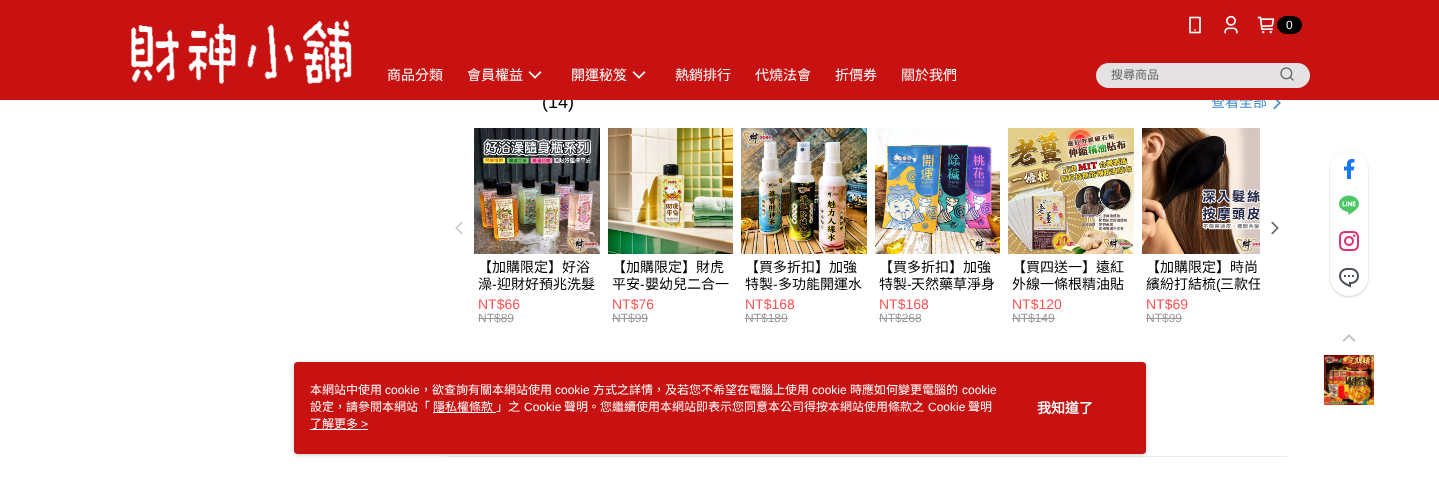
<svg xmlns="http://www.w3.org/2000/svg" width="1439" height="500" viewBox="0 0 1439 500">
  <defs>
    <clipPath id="clip1"><rect x="1146" y="259" width="114" height="34"/></clipPath>
    <clipPath id="clip2"><path d="M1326 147H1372V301H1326ZM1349 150C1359.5 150 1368 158.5 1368 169V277C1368 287.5 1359.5 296 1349 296C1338.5 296 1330 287.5 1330 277V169C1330 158.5 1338.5 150 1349 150Z" clip-rule="evenodd"/></clipPath>
    <filter id="blur1" x="-50%" y="-200%" width="200%" height="500%"><feGaussianBlur stdDeviation="1"/></filter>
    <filter id="blur2" x="-50%" y="-200%" width="200%" height="500%"><feGaussianBlur stdDeviation="2"/></filter>
  </defs>
  <rect width="100%" height="100%" fill="#ffffff"/>
  <text x="542" y="108" font-family="Liberation Sans" font-size="18" fill="#000000">(14)</text>
  <text x="1211" y="107" font-family="Noto Sans CJK TC" font-size="14" fill="#428bca">查看全部</text>
  <rect x="0" y="0" width="1439" height="100" fill="#c81111"/>
  <image x="131" y="20" width="221" height="64" href="img1.png"/>
  <image x="1189" y="16" width="12" height="18" href="img2.png"/>
  <image x="1224" y="15" width="14" height="19" href="img3.png"/>
  <image x="1257" y="16" width="18" height="18" href="img4.png"/>
  <rect x="1277" y="16" width="25" height="18" rx="9" fill="#000000"/>
  <text x="1286" y="29" font-family="Liberation Sans" font-size="12" fill="#ffffff">0</text>
  <text x="387" y="80" font-family="Noto Sans CJK TC" font-size="14" fill="#ffffff">商品分類</text>
  <text x="467" y="80" font-family="Noto Sans CJK TC" font-size="14" fill="#ffffff">會員權益</text>
  <image x="528" y="71" width="14" height="8" href="img5.png"/>
  <text x="571" y="80" font-family="Noto Sans CJK TC" font-size="14" fill="#ffffff">開運秘笈</text>
  <image x="632" y="71" width="14" height="8" href="img5.png"/>
  <text x="675" y="80" font-family="Noto Sans CJK TC" font-size="14" fill="#ffffff">熱銷排行</text>
  <text x="755" y="80" font-family="Noto Sans CJK TC" font-size="14" fill="#ffffff">代燒法會</text>
  <text x="835" y="80" font-family="Noto Sans CJK TC" font-size="14" fill="#ffffff">折價券</text>
  <text x="901" y="80" font-family="Noto Sans CJK TC" font-size="14" fill="#ffffff">關於我們</text>
  <rect x="1096" y="63" width="214" height="25" rx="12.5" fill="#e4e2e2"/>
  <text x="1111" y="79" font-family="Noto Sans CJK TC" font-size="12" fill="#666666">搜尋商品</text>
  <image x="1280" y="67" width="14" height="14" href="img6.png"/>
  <image x="1273" y="100" width="8" height="10" href="img7.png"/>
  <image x="455" y="221" width="8" height="14" href="img8.png"/>
  <image x="1271" y="221" width="8" height="14" href="img9.png"/>
  <image x="474" y="128" width="126" height="126" href="img10.png"/>
  <text x="478" y="272" font-family="Noto Sans CJK TC" font-size="14" fill="#000000">【加購限定】好浴</text>
  <text x="478" y="289" font-family="Noto Sans CJK TC" font-size="14" fill="#000000">澡</text>
  <text x="492" y="289" font-family="Liberation Sans" font-size="14" fill="#000000">-</text>
  <text x="497" y="289" font-family="Noto Sans CJK TC" font-size="14" fill="#000000">迎財好預兆洗髮</text>
  <text x="478" y="309" font-family="Liberation Sans" font-size="14" fill="#ff5353">NT$66</text>
  <text x="478" y="322" font-family="Liberation Sans" font-size="12" fill="#999999">NT$89</text>
  <rect x="478" y="318" width="36" height="1" fill="#999999"/>
  <image x="608" y="128" width="125" height="126" href="img11.png"/>
  <text x="612" y="272" font-family="Noto Sans CJK TC" font-size="14" fill="#000000">【加購限定】財虎</text>
  <text x="612" y="289" font-family="Noto Sans CJK TC" font-size="14" fill="#000000">平安</text>
  <text x="640" y="289" font-family="Liberation Sans" font-size="14" fill="#000000">-</text>
  <text x="645" y="289" font-family="Noto Sans CJK TC" font-size="14" fill="#000000">嬰幼兒二合一</text>
  <text x="612" y="309" font-family="Liberation Sans" font-size="14" fill="#ff5353">NT$76</text>
  <text x="612" y="322" font-family="Liberation Sans" font-size="12" fill="#999999">NT$99</text>
  <rect x="612" y="318" width="36" height="1" fill="#999999"/>
  <image x="741" y="128" width="126" height="126" href="img12.png"/>
  <text x="745" y="272" font-family="Noto Sans CJK TC" font-size="14" fill="#000000">【買多折扣】加強</text>
  <text x="745" y="289" font-family="Noto Sans CJK TC" font-size="14" fill="#000000">特製</text>
  <text x="773" y="289" font-family="Liberation Sans" font-size="14" fill="#000000">-</text>
  <text x="778" y="289" font-family="Noto Sans CJK TC" font-size="14" fill="#000000">多功能開運水</text>
  <text x="745" y="309" font-family="Liberation Sans" font-size="14" fill="#ff5353">NT$168</text>
  <text x="745" y="322" font-family="Liberation Sans" font-size="12" fill="#999999">NT$189</text>
  <rect x="745" y="318" width="43" height="1" fill="#999999"/>
  <image x="875" y="128" width="125" height="126" href="img13.png"/>
  <text x="879" y="272" font-family="Noto Sans CJK TC" font-size="14" fill="#000000">【買多折扣】加強</text>
  <text x="879" y="289" font-family="Noto Sans CJK TC" font-size="14" fill="#000000">特製</text>
  <text x="907" y="289" font-family="Liberation Sans" font-size="14" fill="#000000">-</text>
  <text x="911" y="289" font-family="Noto Sans CJK TC" font-size="14" fill="#000000">天然藥草淨身</text>
  <text x="879" y="309" font-family="Liberation Sans" font-size="14" fill="#ff5353">NT$168</text>
  <text x="879" y="322" font-family="Liberation Sans" font-size="12" fill="#999999">NT$268</text>
  <rect x="879" y="318" width="42" height="1" fill="#999999"/>
  <image x="1008" y="128" width="126" height="126" href="img14.png"/>
  <text x="1012" y="272" font-family="Noto Sans CJK TC" font-size="14" fill="#000000">【買四送一】遠紅</text>
  <text x="1012" y="289" font-family="Noto Sans CJK TC" font-size="14" fill="#000000">外線一條根精油貼</text>
  <text x="1012" y="309" font-family="Liberation Sans" font-size="14" fill="#ff5353">NT$120</text>
  <text x="1012" y="322" font-family="Liberation Sans" font-size="12" fill="#999999">NT$149</text>
  <rect x="1012" y="318" width="43" height="1" fill="#999999"/>
  <image x="1142" y="128" width="118" height="126" href="img15.png"/>
  <text x="1146" y="272" font-family="Noto Sans CJK TC" font-size="14" fill="#000000">【加購限定】時尚</text>
  <text x="1146" y="289" font-family="Noto Sans CJK TC" font-size="14" fill="#000000">繽紛打結梳</text>
  <text x="1216" y="289" font-family="Liberation Sans" font-size="14" fill="#000000">(</text>
  <g clip-path="url(#clip1)">
    <text x="1220" y="289" font-family="Noto Sans CJK TC" font-size="14" fill="#000000">三款任</text>
  </g>
  <text x="1146" y="309" font-family="Liberation Sans" font-size="14" fill="#ff5353">NT$69</text>
  <text x="1146" y="322" font-family="Liberation Sans" font-size="12" fill="#999999">NT$99</text>
  <rect x="1146" y="318" width="36" height="1" fill="#999999"/>
  <rect x="447" y="456" width="840" height="1" fill="#ececec"/>
  <g clip-path="url(#clip2)">
    <rect x="1330" y="151" width="38" height="146" rx="19" fill="#000000" fill-opacity="0.2" filter="url(#blur1)"/>
  </g>
  <rect x="1330.5" y="150.5" width="37" height="145" rx="18.5" fill="#ffffff" fill-opacity="0.9" stroke="#fdfdfd"/>
  <image x="1344" y="159" width="11" height="20" href="img16.png"/>
  <image x="1339" y="195" width="20" height="20" href="img17.png"/>
  <image x="1339" y="231" width="20" height="20" href="img18.png"/>
  <image x="1339" y="268" width="20" height="20" href="img19.png"/>
  <image x="1342" y="334" width="14" height="8" href="img20.png"/>
  <image x="1324" y="355" width="50" height="50" href="img21.png"/>
  <rect x="294" y="363" width="852" height="92" rx="4" fill="#979797" fill-opacity="0.5" filter="url(#blur2)"/>
  <rect x="294" y="362" width="852" height="92" rx="4" fill="#c81111"/>
  <text x="310" y="394" font-family="Noto Sans CJK TC" font-size="12" fill="#ffffff">本網站中使用</text>
  <text x="385" y="394" font-family="Liberation Sans" font-size="12" fill="#ffffff">cookie</text>
  <text x="420" y="394" font-family="Noto Sans CJK TC" font-size="12" fill="#ffffff">，欲查詢有關本網站使用</text>
  <text x="555" y="394" font-family="Liberation Sans" font-size="12" fill="#ffffff">cookie</text>
  <text x="593" y="394" font-family="Noto Sans CJK TC" font-size="12" fill="#ffffff">方式之詳情，及若您不希望在電腦上使用</text>
  <text x="812" y="394" font-family="Liberation Sans" font-size="12" fill="#ffffff">cookie</text>
  <text x="850" y="394" font-family="Noto Sans CJK TC" font-size="12" fill="#ffffff">時應如何變更電腦的</text>
  <text x="962" y="394" font-family="Liberation Sans" font-size="12" fill="#ffffff">cookie</text>
  <text x="310" y="411" font-family="Noto Sans CJK TC" font-size="12" fill="#ffffff">設定，請參閱本網站「</text>
  <text x="433" y="411" font-family="Noto Sans CJK TC" font-size="12" fill="#ffffff">隱私權條款</text>
  <rect x="433" y="412" width="63" height="1" fill="#ffffff"/>
  <text x="496" y="411" font-family="Noto Sans CJK TC" font-size="12" fill="#ffffff">」之</text>
  <text x="524" y="411" font-family="Liberation Sans" font-size="12" fill="#ffffff">Cookie</text>
  <text x="564" y="411" font-family="Noto Sans CJK TC" font-size="12" fill="#ffffff">聲明。您繼續使用本網站即表示您同意本公司得按本網站使用條款之</text>
  <text x="928" y="411" font-family="Liberation Sans" font-size="12" fill="#ffffff">Cookie</text>
  <text x="968" y="411" font-family="Noto Sans CJK TC" font-size="12" fill="#ffffff">聲明</text>
  <text x="310" y="428" font-family="Noto Sans CJK TC" font-size="12" fill="#ffffff">了解更多</text>
  <text x="361" y="428" font-family="Liberation Sans" font-size="12" fill="#ffffff">&gt;</text>
  <rect x="310" y="429" width="58" height="1" fill="#ffffff"/>
  <text x="1037" y="413" font-family="Noto Sans CJK TC" font-size="14" font-weight="bold" fill="#ffffff">我知道了</text>
</svg>
